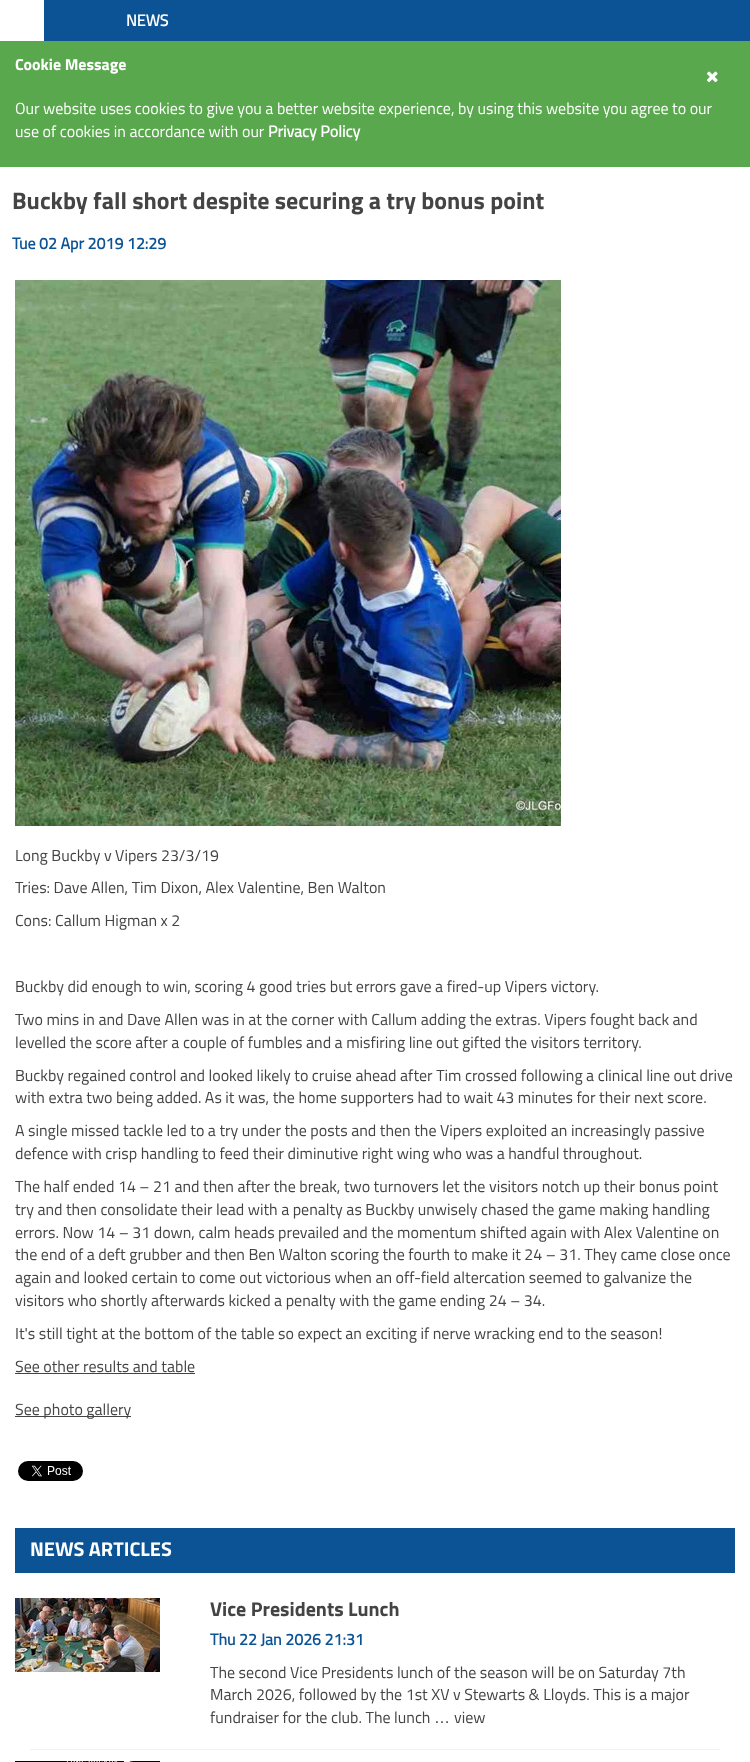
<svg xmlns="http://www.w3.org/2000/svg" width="750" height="1762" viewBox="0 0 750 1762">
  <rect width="100%" height="100%" fill="#ffffff"/>
  <rect x="44" y="0" width="706" height="41" fill="#0b5394"/>
  <text x="126" y="26" font-family="'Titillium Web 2'" font-size="16" font-weight="bold" fill="#ffffff">NEWS</text>
  <rect x="0" y="41" width="750" height="126" fill="#5aa84e"/>
  <text x="15" y="70" font-family="Titillium Web" font-size="16" font-weight="bold" fill="#ffffff">Cookie Message</text>
  <image x="707" y="71" width="11" height="12" href="img1.png"/>
  <text x="15" y="114" font-family="Titillium Web" font-size="16" fill="#ffffff">Our website uses cookies to give you a better website experience, by using this website you agree to our</text>
  <text x="15" y="137" font-family="Titillium Web" font-size="16" fill="#ffffff">use of cookies in accordance with our</text>
  <text x="268" y="137" font-family="'Titillium Web 2'" font-size="16" font-weight="bold" fill="#ffffff">Privacy Policy</text>
  <text x="12" y="209" font-family="Titillium Web" font-size="24" font-weight="bold" fill="#444444">Buckby fall short despite securing a try bonus point</text>
  <text x="12" y="249" font-family="'Titillium Web 2'" font-size="16" font-weight="bold" fill="#0b5394">Tue 02 Apr 2019 12:29</text>
  <image x="15" y="280" width="546" height="546" href="img2.png"/>
  <text x="15" y="861" font-family="Titillium Web" font-size="16" fill="#444444">Long Buckby v Vipers 23/3/19</text>
  <text x="15" y="893" font-family="Titillium Web" font-size="16" fill="#444444">Tries: Dave Allen, Tim Dixon, Alex Valentine, Ben Walton</text>
  <text x="15" y="926" font-family="Titillium Web" font-size="16" fill="#444444">Cons: Callum Higman x 2</text>
  <text x="15" y="992" font-family="Titillium Web" font-size="16" fill="#444444">Buckby did enough to win, scoring 4 good tries but errors gave a fired-up Vipers victory.</text>
  <text x="15" y="1025" font-family="Titillium Web" font-size="16" fill="#444444">Two mins in and Dave Allen was in at the corner with Callum adding the extras. Vipers fought back and</text>
  <text x="15" y="1048" font-family="Titillium Web" font-size="16" fill="#444444">levelled the score after a couple of fumbles and a misfiring line out gifted the visitors territory.</text>
  <text x="15" y="1081" font-family="Titillium Web" font-size="16" fill="#444444">Buckby regained control and looked likely to cruise ahead after Tim crossed following a clinical line out drive</text>
  <text x="15" y="1103" font-family="Titillium Web" font-size="16" fill="#444444">with extra two being added. As it was, the home supporters had to wait 43 minutes for their next score.</text>
  <text x="15" y="1136" font-family="Titillium Web" font-size="16" fill="#444444">A single missed tackle led to a try under the posts and then the Vipers exploited an increasingly passive</text>
  <text x="15" y="1159" font-family="Titillium Web" font-size="16" fill="#444444">defence with crisp handling to feed their diminutive right wing who was a handful throughout.</text>
  <text x="15" y="1192" font-family="Titillium Web" font-size="16" fill="#444444">The half ended 14 – 21 and then after the break, two turnovers let the visitors notch up their bonus point</text>
  <text x="15" y="1215" font-family="Titillium Web" font-size="16" fill="#444444">try and then consolidate their lead with a penalty as Buckby unwisely chased the game making handling</text>
  <text x="15" y="1238" font-family="Titillium Web" font-size="16" fill="#444444">errors. Now 14 – 31 down, calm heads prevailed and the momentum shifted again with Alex Valentine on</text>
  <text x="15" y="1260" font-family="Titillium Web" font-size="16" fill="#444444">the end of a deft grubber and then Ben Walton scoring the fourth to make it 24 – 31. They came close once</text>
  <text x="15" y="1283" font-family="Titillium Web" font-size="16" fill="#444444">again and looked certain to come out victorious when an off-field altercation seemed to galvanize the</text>
  <text x="15" y="1306" font-family="Titillium Web" font-size="16" fill="#444444">visitors who shortly afterwards kicked a penalty with the game ending 24 – 34.</text>
  <text x="15" y="1339" font-family="Titillium Web" font-size="16" fill="#444444">It's still tight at the bottom of the table so expect an exciting if nerve wracking end to the season!</text>
  <text x="15" y="1372" font-family="Titillium Web" font-size="16" fill="#444444">See other results and table</text>
  <rect x="15" y="1373" width="180" height="1" fill="#444444"/>
  <rect x="15" y="1416" width="116" height="1" fill="#444444"/>
  <text x="15" y="1415" font-family="Titillium Web" font-size="16" fill="#444444">See photo gallery</text>
  <image x="18" y="1461" width="65" height="20" href="img3.png"/>
  <rect x="15" y="1528" width="720" height="45" fill="#0b5394"/>
  <text x="30" y="1556" font-family="Titillium Web" font-size="20" font-weight="bold" fill="#ffffff">NEWS ARTICLES</text>
  <rect x="30" y="1749" width="690" height="1" fill="#f2f2f2"/>
  <image x="15" y="1598" width="145" height="74" href="img4.png"/>
  <text x="210" y="1616" font-family="Titillium Web" font-size="20" font-weight="bold" fill="#444444">Vice Presidents Lunch</text>
  <text x="210" y="1645" font-family="'Titillium Web 2'" font-size="16" font-weight="bold" fill="#0b5394">Thu 22 Jan 2026 21:31</text>
  <text x="210" y="1678" font-family="Titillium Web" font-size="16" fill="#444444">The second Vice Presidents lunch of the season will be on Saturday 7th</text>
  <text x="210" y="1700" font-family="Titillium Web" font-size="16" fill="#444444">March 2026, followed by the 1st XV v Stewarts &amp; Lloyds. This is a major</text>
  <text x="210" y="1723" font-family="Titillium Web" font-size="16" fill="#444444">fundraiser for the club. The lunch</text>
  <text x="434" y="1723" font-family="Liberation Sans" font-size="16" fill="#444444">…</text>
  <text x="454" y="1723" font-family="Titillium Web" font-size="16" fill="#444444">view</text>
  <image x="15" y="1761" width="145" height="1" href="img5.png"/>
</svg>
